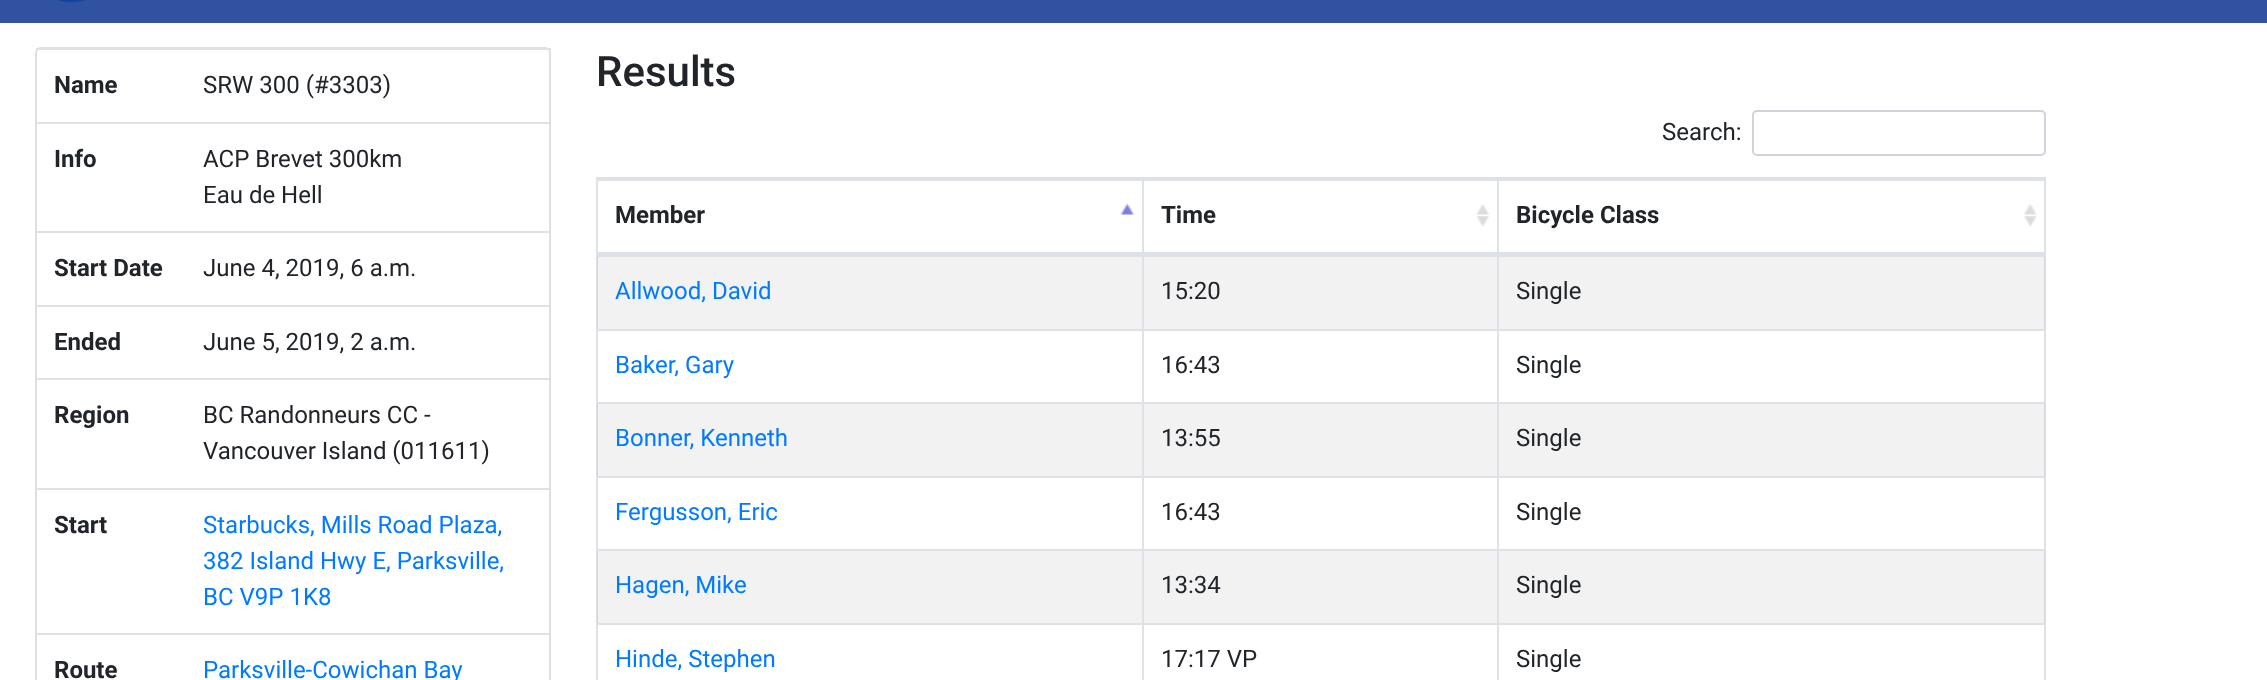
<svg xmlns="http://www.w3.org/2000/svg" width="2267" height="680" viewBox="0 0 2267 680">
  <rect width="100%" height="100%" fill="#ffffff"/>
  <rect x="0" y="0" width="2267" height="23" fill="#3151a1"/>
  <image x="58" y="0" width="27" height="3" href="img1.png"/>
  <rect x="36" y="48" width="514" height="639" rx="5" fill="none" stroke="#dfdfdf" stroke-width="2"/>
  <text x="54" y="93" font-family="Roboto" font-size="24" font-weight="bold" fill="#212529">Name</text>
  <rect x="36" y="48" width="515" height="2" fill="#dee2e6"/>
  <text x="203" y="93" font-family="Roboto" font-size="24" fill="#212529">SRW 300 (#3303)</text>
  <text x="54" y="167" font-family="Roboto" font-size="24" font-weight="bold" fill="#212529">Info</text>
  <rect x="36" y="122" width="515" height="2" fill="#dee2e6"/>
  <text x="203" y="167" font-family="Roboto" font-size="24" fill="#212529">ACP Brevet 300km</text>
  <text x="203" y="203" font-family="Roboto" font-size="24" fill="#212529">Eau de Hell</text>
  <text x="54" y="276" font-family="Roboto" font-size="24" font-weight="bold" fill="#212529">Start Date</text>
  <rect x="36" y="231" width="515" height="2" fill="#dee2e6"/>
  <text x="203" y="276" font-family="Roboto" font-size="24" fill="#212529">June 4, 2019, 6 a.m.</text>
  <text x="54" y="350" font-family="Roboto" font-size="24" font-weight="bold" fill="#212529">Ended</text>
  <rect x="36" y="305" width="515" height="2" fill="#dee2e6"/>
  <text x="203" y="350" font-family="Roboto" font-size="24" fill="#212529">June 5, 2019, 2 a.m.</text>
  <text x="54" y="423" font-family="Roboto" font-size="24" font-weight="bold" fill="#212529">Region</text>
  <rect x="36" y="378" width="515" height="2" fill="#dee2e6"/>
  <text x="203" y="423" font-family="Roboto" font-size="24" fill="#212529">BC Randonneurs CC -</text>
  <text x="203" y="459" font-family="Roboto" font-size="24" fill="#212529">Vancouver Island (011611)</text>
  <text x="54" y="533" font-family="Roboto" font-size="24" font-weight="bold" fill="#212529">Start</text>
  <rect x="36" y="488" width="515" height="2" fill="#dee2e6"/>
  <text x="203" y="533" font-family="Roboto" font-size="24" fill="#007bff">Starbucks, Mills Road Plaza,</text>
  <text x="203" y="569" font-family="Roboto" font-size="24" fill="#007bff">382 Island Hwy E, Parksville,</text>
  <text x="203" y="605" font-family="Roboto" font-size="24" fill="#007bff">BC V9P 1K8</text>
  <text x="54" y="678" font-family="Roboto" font-size="24" font-weight="bold" fill="#212529">Route</text>
  <rect x="36" y="633" width="515" height="2" fill="#dee2e6"/>
  <text x="203" y="678" font-family="Roboto" font-size="24" fill="#007bff">Parksville-Cowichan Bay</text>
  <text x="596" y="86" font-family="Roboto" font-size="42" font-weight="500" fill="#212529">Results</text>
  <text x="1662" y="140" font-family="Roboto" font-size="24" fill="#212529">Search:</text>
  <rect x="1753" y="111" width="292" height="44" rx="4" fill="none" stroke="#ced4da" stroke-width="2"/>
  <rect x="597" y="178" width="1448" height="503" fill="none" stroke="#dee2e6" stroke-width="2"/>
  <image x="1120" y="203" width="15" height="12" href="img2.png"/>
  <rect x="597" y="179" width="546" height="2" fill="#dee2e6"/>
  <rect x="1142" y="179" width="2" height="76" fill="#dee2e6"/>
  <rect x="597" y="252" width="546" height="3" fill="#dee2e6"/>
  <text x="615" y="223" font-family="Roboto" font-size="24" font-weight="bold" fill="#212529">Member</text>
  <image x="1476" y="204" width="14" height="23" href="img3.png"/>
  <rect x="1143" y="179" width="902" height="2" fill="#dee2e6"/>
  <rect x="1497" y="179" width="2" height="76" fill="#dee2e6"/>
  <rect x="1143" y="252" width="902" height="3" fill="#dee2e6"/>
  <text x="1161" y="223" font-family="Roboto" font-size="24" font-weight="bold" fill="#212529">Time</text>
  <image x="2023" y="204" width="14" height="23" href="img4.png"/>
  <text x="1516" y="223" font-family="Roboto" font-size="24" font-weight="bold" fill="#212529">Bicycle Class</text>
  <rect x="597" y="257" width="1448" height="72" fill="#000000" fill-opacity="0.05"/>
  <rect x="597" y="255" width="546" height="2" fill="#dee2e6"/>
  <rect x="1142" y="255" width="2" height="74" fill="#dee2e6"/>
  <text x="615" y="299" font-family="Roboto" font-size="24" fill="#007bff">Allwood, David</text>
  <rect x="1143" y="255" width="902" height="2" fill="#dee2e6"/>
  <rect x="1497" y="255" width="2" height="74" fill="#dee2e6"/>
  <text x="1161" y="299" font-family="Roboto" font-size="24" fill="#212529">15:20</text>
  <text x="1516" y="299" font-family="Roboto" font-size="24" fill="#212529">Single</text>
  <rect x="597" y="329" width="546" height="2" fill="#dee2e6"/>
  <rect x="1142" y="329" width="2" height="73" fill="#dee2e6"/>
  <text x="615" y="373" font-family="Roboto" font-size="24" fill="#007bff">Baker, Gary</text>
  <rect x="1143" y="329" width="902" height="2" fill="#dee2e6"/>
  <rect x="1497" y="329" width="2" height="73" fill="#dee2e6"/>
  <text x="1161" y="373" font-family="Roboto" font-size="24" fill="#212529">16:43</text>
  <text x="1516" y="373" font-family="Roboto" font-size="24" fill="#212529">Single</text>
  <rect x="597" y="404" width="1448" height="72" fill="#000000" fill-opacity="0.05"/>
  <rect x="597" y="402" width="546" height="2" fill="#dee2e6"/>
  <rect x="1142" y="402" width="2" height="74" fill="#dee2e6"/>
  <text x="615" y="446" font-family="Roboto" font-size="24" fill="#007bff">Bonner, Kenneth</text>
  <rect x="1143" y="402" width="902" height="2" fill="#dee2e6"/>
  <rect x="1497" y="402" width="2" height="74" fill="#dee2e6"/>
  <text x="1161" y="446" font-family="Roboto" font-size="24" fill="#212529">13:55</text>
  <text x="1516" y="446" font-family="Roboto" font-size="24" fill="#212529">Single</text>
  <rect x="597" y="476" width="546" height="2" fill="#dee2e6"/>
  <rect x="1142" y="476" width="2" height="73" fill="#dee2e6"/>
  <text x="615" y="520" font-family="Roboto" font-size="24" fill="#007bff">Fergusson, Eric</text>
  <rect x="1143" y="476" width="902" height="2" fill="#dee2e6"/>
  <rect x="1497" y="476" width="2" height="73" fill="#dee2e6"/>
  <text x="1161" y="520" font-family="Roboto" font-size="24" fill="#212529">16:43</text>
  <text x="1516" y="520" font-family="Roboto" font-size="24" fill="#212529">Single</text>
  <rect x="597" y="551" width="1448" height="72" fill="#000000" fill-opacity="0.05"/>
  <rect x="597" y="549" width="546" height="2" fill="#dee2e6"/>
  <rect x="1142" y="549" width="2" height="74" fill="#dee2e6"/>
  <text x="615" y="593" font-family="Roboto" font-size="24" fill="#007bff">Hagen, Mike</text>
  <rect x="1143" y="549" width="902" height="2" fill="#dee2e6"/>
  <rect x="1497" y="549" width="2" height="74" fill="#dee2e6"/>
  <text x="1161" y="593" font-family="Roboto" font-size="24" fill="#212529">13:34</text>
  <text x="1516" y="593" font-family="Roboto" font-size="24" fill="#212529">Single</text>
  <rect x="597" y="623" width="546" height="2" fill="#dee2e6"/>
  <rect x="1142" y="623" width="2" height="57" fill="#dee2e6"/>
  <text x="615" y="667" font-family="Roboto" font-size="24" fill="#007bff">Hinde, Stephen</text>
  <rect x="1143" y="623" width="902" height="2" fill="#dee2e6"/>
  <rect x="1497" y="623" width="2" height="57" fill="#dee2e6"/>
  <text x="1161" y="667" font-family="Roboto" font-size="24" fill="#212529">17:17 VP</text>
  <text x="1516" y="667" font-family="Roboto" font-size="24" fill="#212529">Single</text>
</svg>
